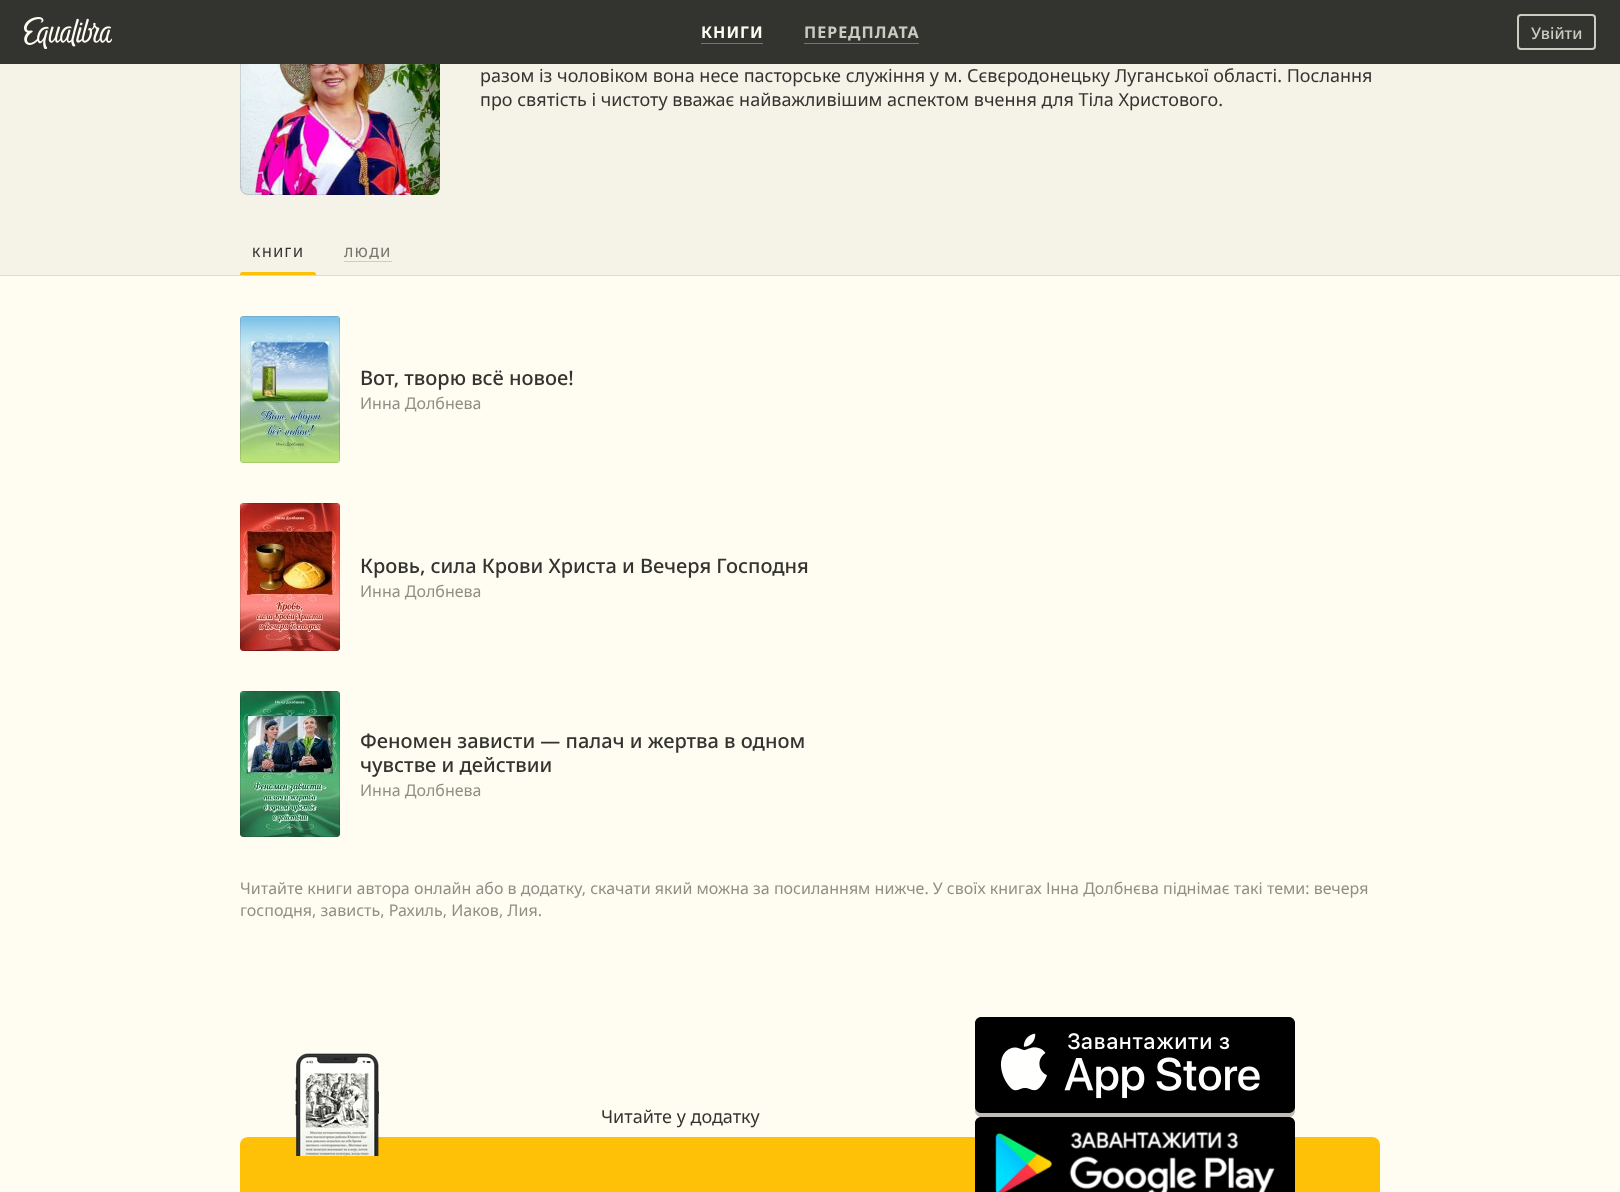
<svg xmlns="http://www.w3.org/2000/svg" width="1620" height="1192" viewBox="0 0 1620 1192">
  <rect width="100%" height="100%" fill="#fffdf2"/>
  <rect x="0" y="64" width="1620" height="211" fill="#f5f3e8"/>
  <image x="240" y="64" width="200" height="131" href="img2.png"/>
  <rect x="240.5" y="-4.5" width="199" height="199" rx="7.5" fill="none" stroke="#000000" stroke-opacity="0.12"/>
  <rect x="0" y="0" width="1620" height="64" fill="#333330"/>
  <image x="24" y="17" width="88" height="32" href="img1.png"/>
  <rect x="701" y="43" width="62" height="1" fill="#767670"/>
  <text x="701" y="38" font-family="Noto Sans" font-size="16" font-weight="bold" letter-spacing="1" fill="#fffdf2">КНИГИ</text>
  <rect x="804" y="43" width="115" height="1" fill="#767670"/>
  <text x="804" y="38" font-family="Noto Sans" font-size="16" font-weight="bold" letter-spacing="1" fill="#cccbc2">ПЕРЕДПЛАТА</text>
  <rect x="1518" y="15" width="77" height="34" rx="3" fill="none" stroke="#cdcbc2" stroke-width="2"/>
  <text x="1531" y="39" font-family="Noto Sans" font-size="16" font-weight="500" fill="#cccbc2">Увійти</text>
  <rect x="0" y="275" width="1620" height="1" fill="#dddbd1"/>
  <text x="480" y="82" font-family="Noto Sans" font-size="18" fill="#333330">разом із чоловіком вона несе пасторське служіння у м. Сєвєродонецьку Луганської області. Послання</text>
  <text x="480" y="106" font-family="Noto Sans" font-size="18" fill="#333330">про святість і чистоту вважає найважливішим аспектом вчення для Тіла Христового.</text>
  <text x="252" y="257" font-family="Noto Sans" font-size="13" font-weight="500" letter-spacing="1.5" fill="#333330">КНИГИ</text>
  <path d="M242 272H314C315 272 316 273 316 274V275H240V274C240 273 241 272 242 272Z" fill="#ffc107"/>
  <text x="344" y="257" font-family="Noto Sans" font-size="13" font-weight="500" letter-spacing="1.5" fill="#75756e">ЛЮДИ</text>
  <rect x="344" y="261" width="48" height="1" fill="#cfcdc3"/>
  <image x="240" y="316" width="100" height="147" href="img3.png"/>
  <path d="M243 316C241 316 240 317 240 319V460C240 462 241 463 243 463H337C339 463 340 462 340 460V319C340 317 339 316 337 316ZM241 317V462H339V317Z" fill="#000000" fill-opacity="0.1" fill-rule="evenodd"/>
  <text x="360" y="385" font-family="Noto Sans" font-size="20" font-weight="500" fill="#333330">Вот, творю всё новое!</text>
  <text x="360" y="409" font-family="Noto Sans" font-size="16" fill="#8f8f86">Инна Долбнева</text>
  <image x="240" y="503" width="100" height="148" href="img4.png"/>
  <path d="M243 503C241 503 240 504 240 506V648C240 650 241 651 243 651H337C339 651 340 650 340 648V506C340 504 339 503 337 503ZM241 504V650H339V504Z" fill="#000000" fill-opacity="0.1" fill-rule="evenodd"/>
  <text x="360" y="573" font-family="Noto Sans" font-size="20" font-weight="500" fill="#333330">Кровь, сила Крови Христа и Вечеря Господня</text>
  <text x="360" y="597" font-family="Noto Sans" font-size="16" fill="#8f8f86">Инна Долбнева</text>
  <image x="240" y="691" width="100" height="146" href="img5.png"/>
  <path d="M243 691C241 691 240 692 240 694V834C240 836 241 837 243 837H337C339 837 340 836 340 834V694C340 692 339 691 337 691ZM241 692V836H339V692Z" fill="#000000" fill-opacity="0.1" fill-rule="evenodd"/>
  <text x="360" y="748" font-family="Noto Sans" font-size="20" font-weight="500" fill="#333330">Феномен зависти — палач и жертва в одном</text>
  <text x="360" y="772" font-family="Noto Sans" font-size="20" font-weight="500" fill="#333330">чувстве и действии</text>
  <text x="360" y="796" font-family="Noto Sans" font-size="16" fill="#8f8f86">Инна Долбнева</text>
  <text x="240" y="894" font-family="Noto Sans" font-size="16" fill="#8f8f86">Читайте книги автора онлайн або в додатку, скачати який можна за посиланням нижче. У своїх книгах Інна Долбнєва піднімає такі теми: вечеря</text>
  <text x="240" y="916" font-family="Noto Sans" font-size="16" fill="#8f8f86">господня, зависть, Рахиль, Иаков, Лия.</text>
  <rect x="240" y="1137" width="1140" height="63" rx="8" fill="#ffc107"/>
  <image x="295" y="1053" width="84" height="103" href="img6.png"/>
  <text x="601" y="1123" font-family="Noto Sans" font-size="18" fill="#333330">Читайте у додатку</text>
  <image x="975" y="1017" width="320" height="100" href="img7.png"/>
  <image x="975" y="1117" width="320" height="75" href="img8.png"/>
</svg>
